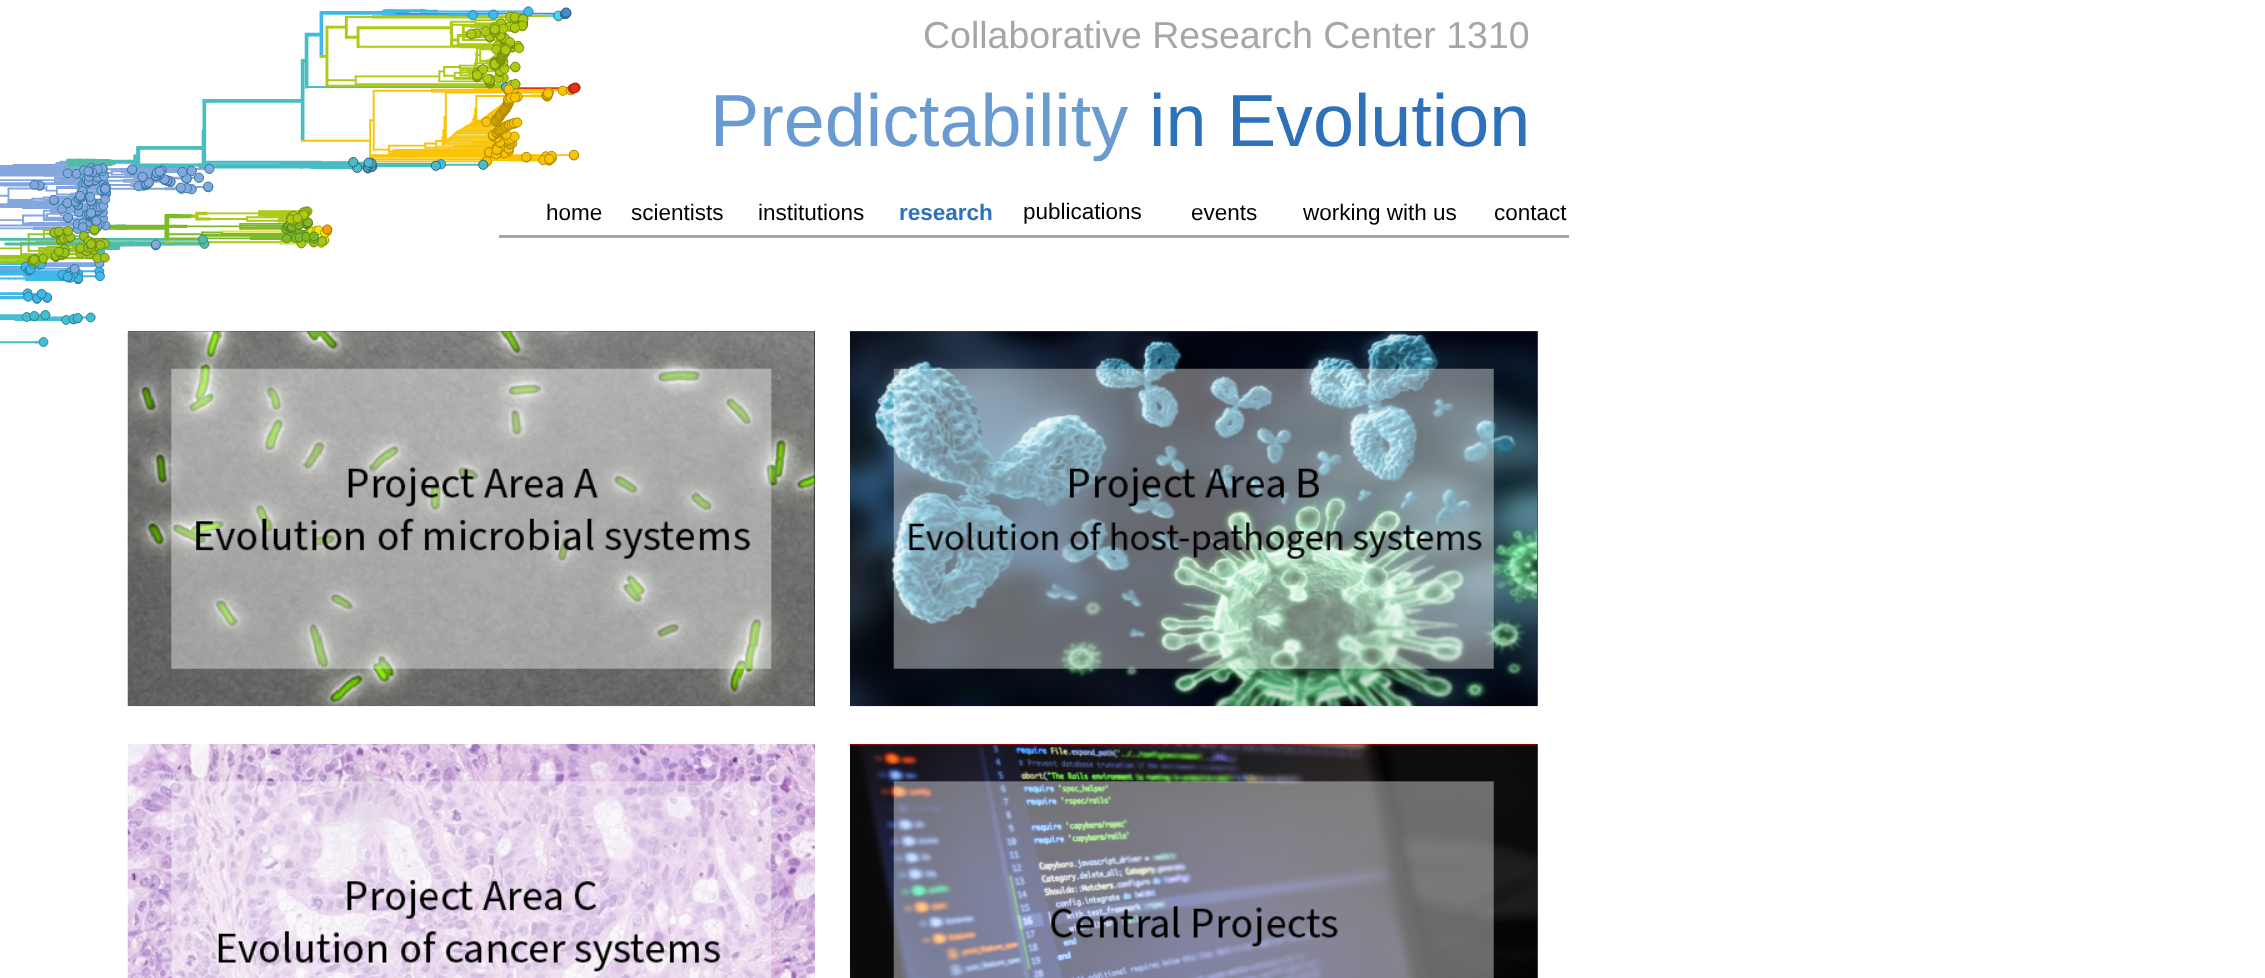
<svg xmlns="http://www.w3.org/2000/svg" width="2265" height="978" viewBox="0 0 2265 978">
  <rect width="100%" height="100%" fill="#ffffff"/>
  <image x="0" y="6" width="581" height="341" href="img1.png"/>
  <text x="923" y="48" font-family="Liberation Sans" font-size="37.5" fill="#a6a6a6">Collaborative Research Center 1310</text>
  <text x="710" y="146" font-family="Liberation Sans" font-size="73.75" fill="#6a9bd0">Predictability</text>
  <text x="1149" y="146" font-family="Liberation Sans" font-size="73.75" fill="#2d71ba">in Evolution</text>
  <rect x="499" y="235" width="1070" height="3" fill="#aba3a1"/>
  <text x="546" y="220" font-family="Liberation Sans" font-size="22.5" fill="#000000">home</text>
  <text x="631" y="220" font-family="Liberation Sans" font-size="22.5" fill="#000000">scientists</text>
  <text x="758" y="220" font-family="Liberation Sans" font-size="22.5" fill="#000000">institutions</text>
  <text x="899" y="220" font-family="Liberation Sans" font-size="22.5" font-weight="bold" fill="#2d71ba">research</text>
  <text x="1023" y="219" font-family="Liberation Sans" font-size="22.5" fill="#000000">publications</text>
  <text x="1191" y="220" font-family="Liberation Sans" font-size="22.5" fill="#000000">events</text>
  <text x="1303" y="220" font-family="Liberation Sans" font-size="22.5" fill="#000000">working with us</text>
  <text x="1494" y="220" font-family="Liberation Sans" font-size="22.5" fill="#000000">contact</text>
  <rect x="128" y="331" width="687" height="1" fill="#ff0000"/>
  <image x="127" y="331" width="688" height="376" href="img2.png"/>
  <rect x="850" y="331" width="688" height="375" fill="#ff0000"/>
  <image x="850" y="331" width="688" height="376" href="img3.png"/>
  <image x="127" y="743" width="688" height="235" href="img4.png"/>
  <rect x="850" y="744" width="688" height="234" fill="#ff0000"/>
  <image x="850" y="743" width="688" height="235" href="img5.png"/>
</svg>
